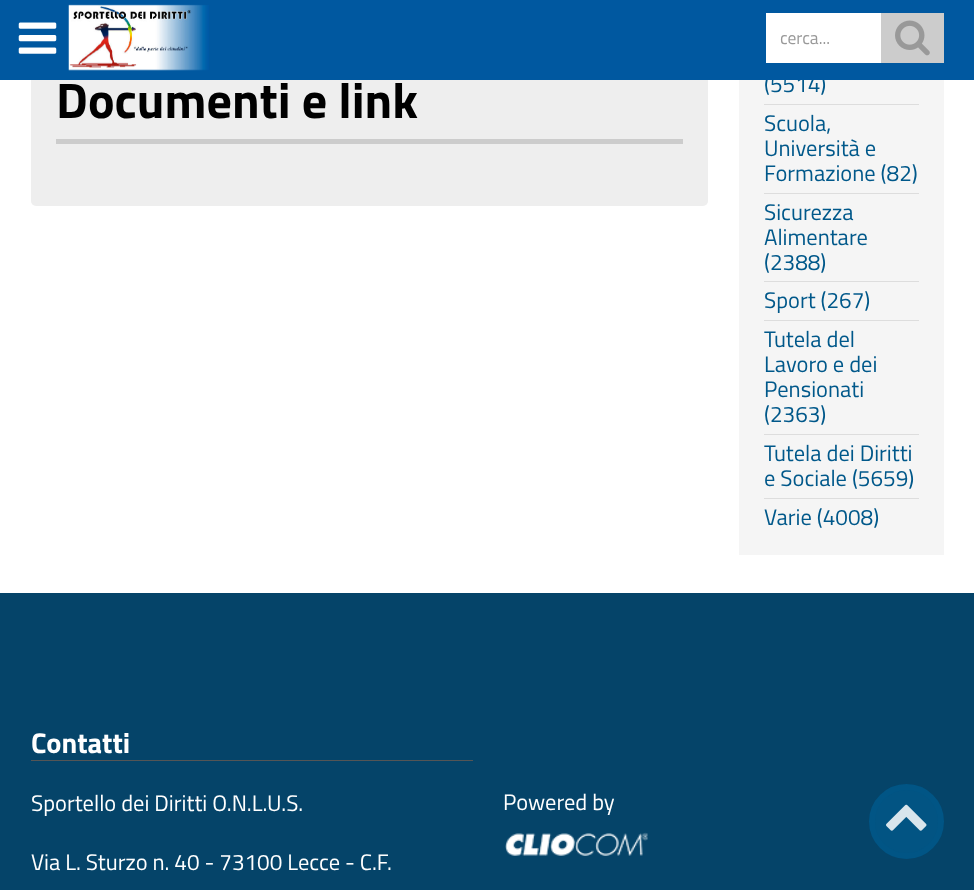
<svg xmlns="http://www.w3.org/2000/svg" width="974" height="890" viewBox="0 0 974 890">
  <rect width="100%" height="100%" fill="#ffffff"/>
  <rect x="31" y="51" width="677" height="155" rx="5" fill="#eeeeee"/>
  <rect x="739" y="80" width="205" height="475" fill="#f5f5f5"/>
  <text x="764" y="92" font-family="Titillium Web" font-size="22.5" fill="#00588a">(5514)</text>
  <rect x="0" y="0" width="974" height="80" fill="#0058a0"/>
  <image x="18" y="22" width="39" height="32" href="img1.png"/>
  <image x="68" y="4" width="141" height="67" href="img2.png"/>
  <rect x="766" y="13" width="115" height="50" fill="#ffffff"/>
  <text x="780" y="44" font-family="Titillium Web" font-size="17.5" fill="#999999">cerca...</text>
  <rect x="881" y="13" width="63" height="50" fill="#cccccc"/>
  <image x="895" y="20" width="35" height="36" href="img3.png"/>
  <rect x="56" y="139" width="627" height="5" fill="#cccccc"/>
  <text x="56" y="118" font-family="Titillium Web" font-size="50" font-weight="bold" fill="#000000">Documenti e link</text>
  <rect x="764" y="104" width="155" height="1" fill="#dddddd"/>
  <text x="764" y="131" font-family="Titillium Web" font-size="22.5" fill="#00588a">Scuola,</text>
  <text x="764" y="156" font-family="Titillium Web" font-size="22.5" fill="#00588a">Università e</text>
  <text x="764" y="181" font-family="Titillium Web" font-size="22.5" fill="#00588a">Formazione (82)</text>
  <rect x="764" y="193" width="155" height="1" fill="#dddddd"/>
  <text x="764" y="220" font-family="Titillium Web" font-size="22.5" fill="#00588a">Sicurezza</text>
  <text x="764" y="245" font-family="Titillium Web" font-size="22.5" fill="#00588a">Alimentare</text>
  <text x="764" y="270" font-family="Titillium Web" font-size="22.5" fill="#00588a">(2388)</text>
  <rect x="764" y="281" width="155" height="1" fill="#dddddd"/>
  <text x="764" y="308" font-family="Titillium Web" font-size="22.5" fill="#00588a">Sport (267)</text>
  <rect x="764" y="320" width="155" height="1" fill="#dddddd"/>
  <text x="764" y="347" font-family="Titillium Web" font-size="22.5" fill="#00588a">Tutela del</text>
  <text x="764" y="372" font-family="Titillium Web" font-size="22.5" fill="#00588a">Lavoro e dei</text>
  <text x="764" y="397" font-family="Titillium Web" font-size="22.5" fill="#00588a">Pensionati</text>
  <text x="764" y="422" font-family="Titillium Web" font-size="22.5" fill="#00588a">(2363)</text>
  <rect x="764" y="434" width="155" height="1" fill="#dddddd"/>
  <text x="764" y="461" font-family="Titillium Web" font-size="22.5" fill="#00588a">Tutela dei Diritti</text>
  <text x="764" y="486" font-family="Titillium Web" font-size="22.5" fill="#00588a">e Sociale (5659)</text>
  <rect x="764" y="498" width="155" height="1" fill="#dddddd"/>
  <text x="764" y="525" font-family="Titillium Web" font-size="22.5" fill="#00588a">Varie (4008)</text>
  <rect x="0" y="593" width="974" height="297" fill="#054469"/>
  <rect x="31" y="760" width="442" height="1" fill="#555555"/>
  <text x="31" y="753" font-family="Titillium Web" font-size="28.5" font-weight="bold" fill="#ffffff">Contatti</text>
  <text x="31" y="811" font-family="Titillium Web" font-size="22.5" fill="#ffffff">Sportello dei Diritti O.N.L.U.S.</text>
  <text x="31" y="870" font-family="Titillium Web" font-size="22.5" fill="#ffffff">Via L. Sturzo n. 40 - 73100 Lecce - C.F.</text>
  <text x="503" y="810" font-family="Titillium Web" font-size="22.5" fill="#ffffff">Powered by</text>
  <image x="505" y="832" width="143" height="24" href="img4.png"/>
  <circle cx="906.5" cy="821.5" r="34.5" fill="#025483" stroke="#015585" stroke-width="6"/>
  <image x="886" y="804" width="41" height="27" href="img5.png"/>
</svg>
